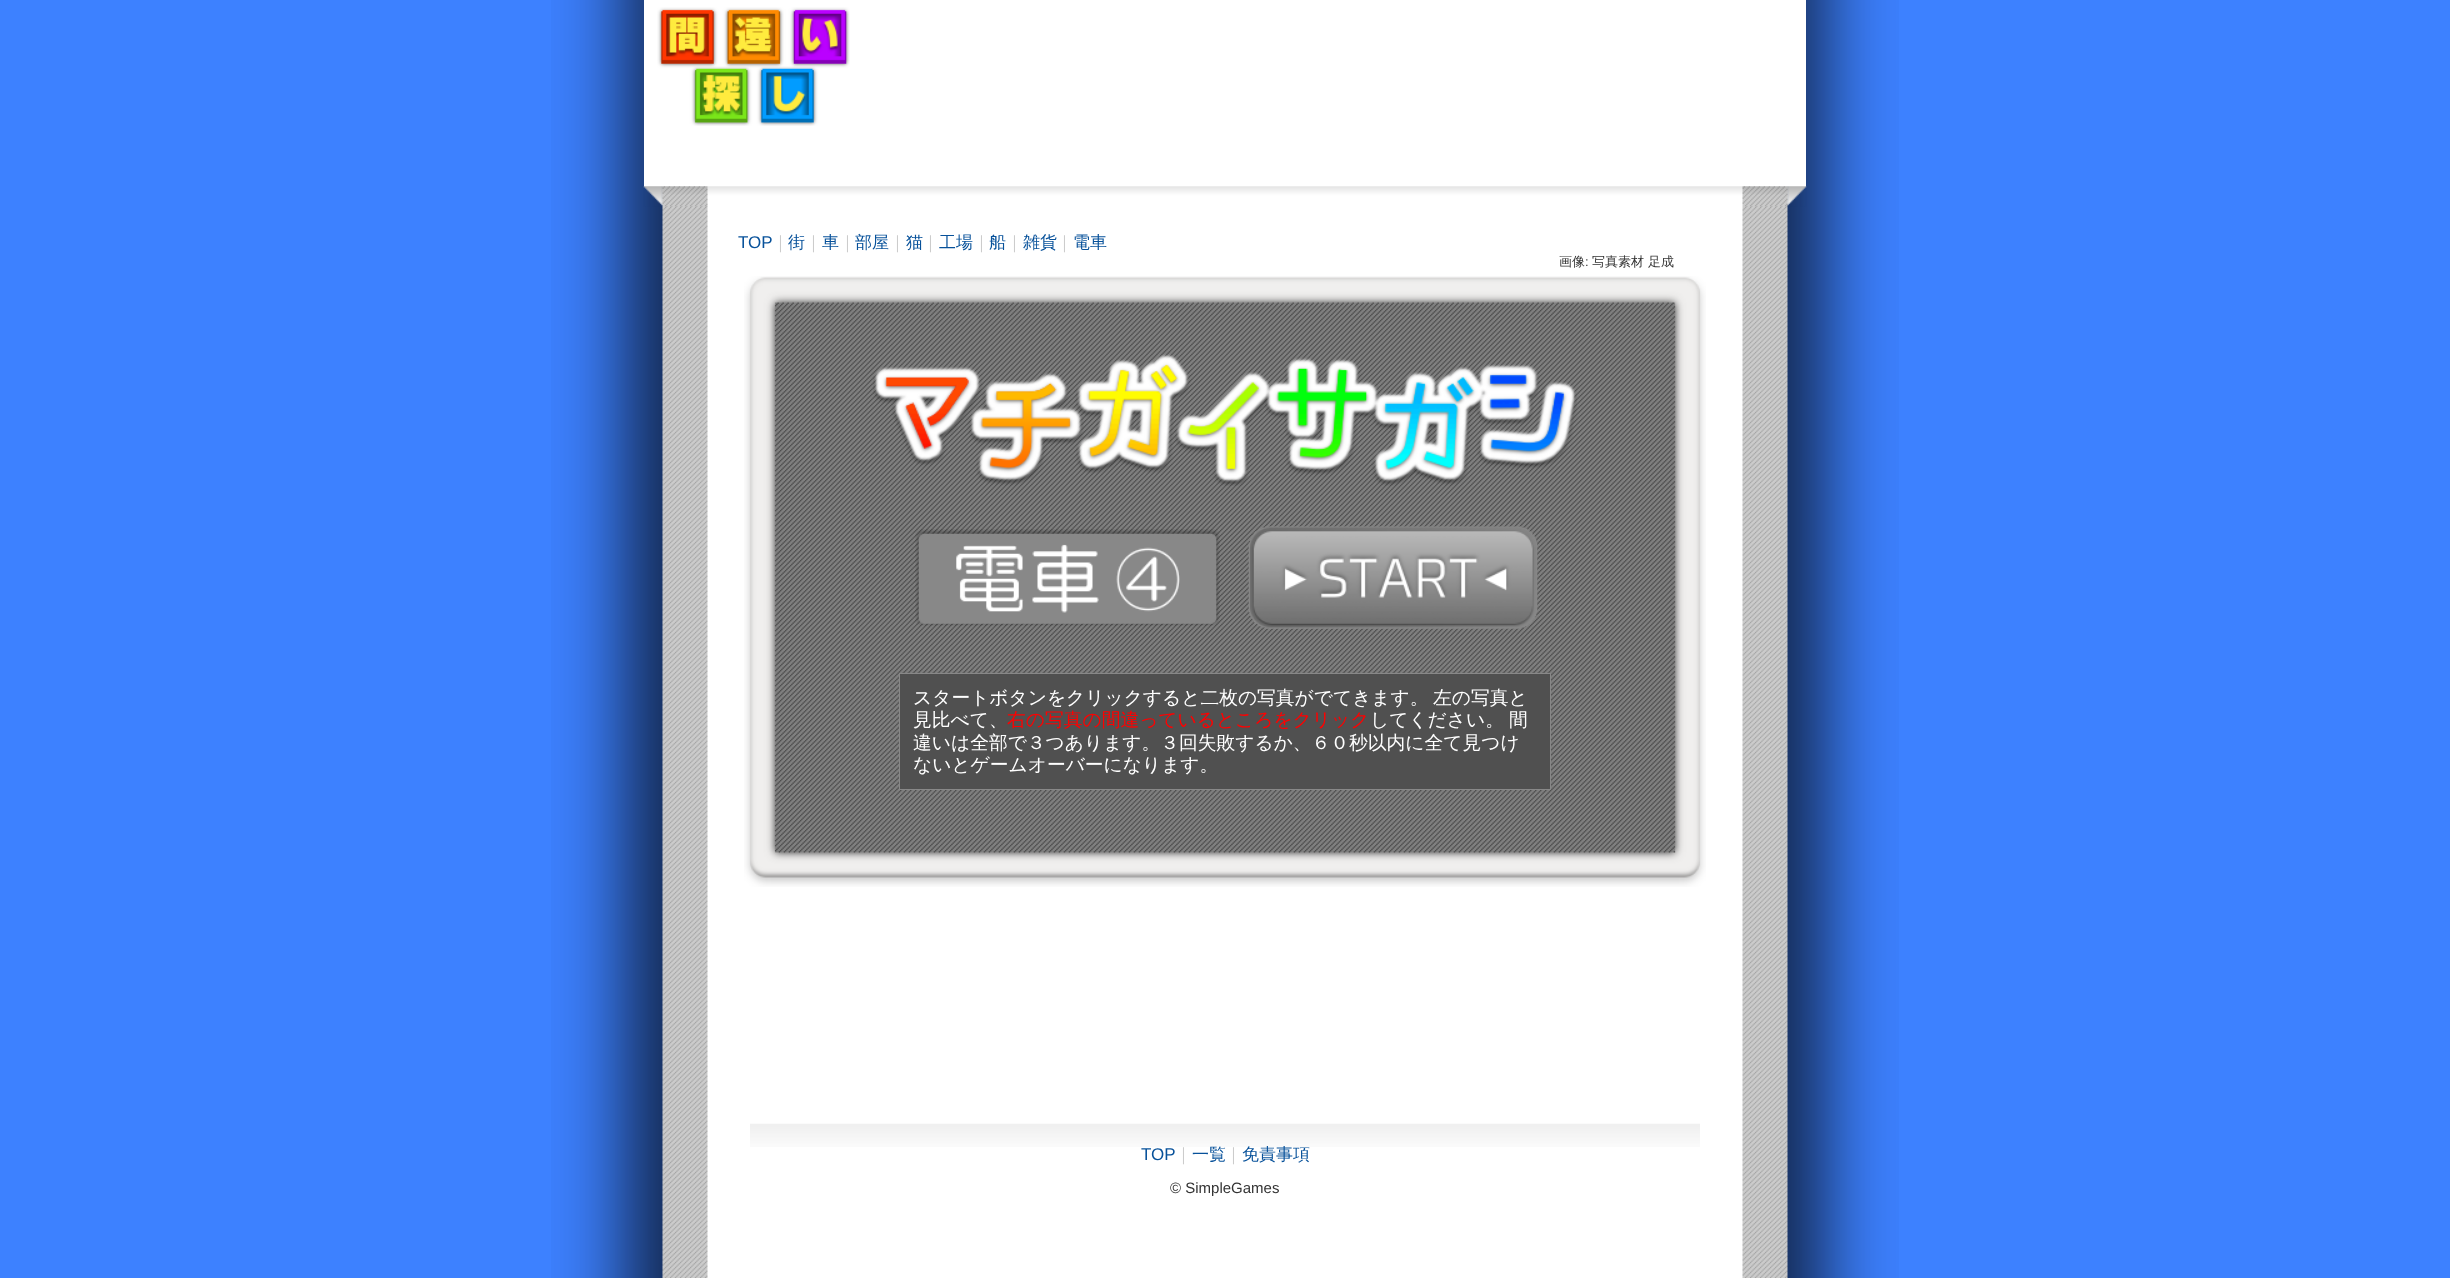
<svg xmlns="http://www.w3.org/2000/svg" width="2450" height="1278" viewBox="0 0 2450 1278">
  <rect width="100%" height="100%" fill="#3d81ff"/>
  <image x="551" y="0" width="1348" height="1278" href="img1.png"/>
  <rect x="644" y="0" width="1162" height="187" fill="#ffffff"/>
  <image x="643" y="186" width="1164" height="21" href="img2.png"/>
  <image x="657" y="7" width="193" height="119" href="img3.png"/>
  <text x="738" y="248" font-family="Liberation Sans" font-size="17" fill="#07519a">TOP</text>
  <text x="772" y="248" font-family="WenQuanYi Zen Hei" font-size="17" font-weight="500" fill="#cccccc">｜</text>
  <text x="788" y="248" font-family="WenQuanYi Zen Hei" font-size="17" font-weight="500" fill="#07519a">街</text>
  <text x="805" y="248" font-family="WenQuanYi Zen Hei" font-size="17" font-weight="500" fill="#cccccc">｜</text>
  <text x="822" y="248" font-family="WenQuanYi Zen Hei" font-size="17" font-weight="500" fill="#07519a">車</text>
  <text x="839" y="248" font-family="WenQuanYi Zen Hei" font-size="17" font-weight="500" fill="#cccccc">｜</text>
  <text x="855" y="248" font-family="WenQuanYi Zen Hei" font-size="17" font-weight="500" fill="#07519a">部屋</text>
  <text x="889" y="248" font-family="WenQuanYi Zen Hei" font-size="17" font-weight="500" fill="#cccccc">｜</text>
  <text x="906" y="248" font-family="WenQuanYi Zen Hei" font-size="17" font-weight="500" fill="#07519a">猫</text>
  <text x="922" y="248" font-family="WenQuanYi Zen Hei" font-size="17" font-weight="500" fill="#cccccc">｜</text>
  <text x="939" y="248" font-family="WenQuanYi Zen Hei" font-size="17" font-weight="500" fill="#07519a">工場</text>
  <text x="973" y="248" font-family="WenQuanYi Zen Hei" font-size="17" font-weight="500" fill="#cccccc">｜</text>
  <text x="989" y="248" font-family="WenQuanYi Zen Hei" font-size="17" font-weight="500" fill="#07519a">船</text>
  <text x="1006" y="248" font-family="WenQuanYi Zen Hei" font-size="17" font-weight="500" fill="#cccccc">｜</text>
  <text x="1023" y="248" font-family="WenQuanYi Zen Hei" font-size="17" font-weight="500" fill="#07519a">雑貨</text>
  <text x="1056" y="248" font-family="WenQuanYi Zen Hei" font-size="17" font-weight="500" fill="#cccccc">｜</text>
  <text x="1073" y="248" font-family="WenQuanYi Zen Hei" font-size="17" font-weight="500" fill="#07519a">電車</text>
  <text x="1559" y="266" font-family="WenQuanYi Zen Hei" font-size="13" font-weight="500" fill="#333333">画像</text>
  <text x="1585" y="266" font-family="Liberation Sans" font-size="13" fill="#333333">:</text>
  <text x="1592" y="266" font-family="WenQuanYi Zen Hei" font-size="13" font-weight="500" fill="#333333">写真素材 足成</text>
  <image x="744" y="276" width="962" height="611" href="img4.png"/>
  <image x="873" y="354" width="704" height="132" href="img5.png"/>
  <image x="915" y="529" width="305" height="97" href="img6.png"/>
  <image x="956" y="544" width="143" height="69" href="img7.png"/>
  <image x="1116" y="547" width="64" height="65" href="img8.png"/>
  <image x="1248" y="526" width="290" height="103" href="img9.png"/>
  <rect x="899.5" y="673.5" width="651" height="116" fill="#505050" stroke="#888888"/>
  <text x="913" y="704" font-family="WenQuanYi Zen Hei" font-size="18.75" font-weight="500" fill="#ffffff">スタートボタンをクリックすると二枚の写真がでてきます。</text>
  <text x="1433" y="704" font-family="WenQuanYi Zen Hei" font-size="18.75" font-weight="500" fill="#ffffff">左の写真と</text>
  <text x="913" y="726" font-family="WenQuanYi Zen Hei" font-size="18.75" font-weight="500" fill="#ffffff">見比べて、</text>
  <text x="1007" y="726" font-family="WenQuanYi Zen Hei" font-size="18.75" font-weight="500" fill="#ff0000">右の写真の間違っているところをクリック</text>
  <text x="1370" y="726" font-family="WenQuanYi Zen Hei" font-size="18.75" font-weight="500" fill="#ffffff">してください。</text>
  <text x="1509" y="726" font-family="WenQuanYi Zen Hei" font-size="18.75" font-weight="500" fill="#ffffff">間</text>
  <text x="913" y="749" font-family="WenQuanYi Zen Hei" font-size="18.75" font-weight="500" fill="#ffffff">違いは全部で３つあります。３回失敗するか、６０秒以内に全て見つけ</text>
  <text x="913" y="771" font-family="WenQuanYi Zen Hei" font-size="18.75" font-weight="500" fill="#ffffff">ないとゲームオーバーになります。</text>
  <image x="750" y="1123" width="950" height="24" href="img10.png"/>
  <text x="1141" y="1160" font-family="Liberation Sans" font-size="17" fill="#07519a">TOP</text>
  <text x="1175" y="1160" font-family="WenQuanYi Zen Hei" font-size="17" font-weight="500" fill="#cccccc">｜</text>
  <text x="1192" y="1160" font-family="WenQuanYi Zen Hei" font-size="17" font-weight="500" fill="#07519a">一覧</text>
  <text x="1225" y="1160" font-family="WenQuanYi Zen Hei" font-size="17" font-weight="500" fill="#cccccc">｜</text>
  <text x="1242" y="1160" font-family="WenQuanYi Zen Hei" font-size="17" font-weight="500" fill="#07519a">免責事項</text>
  <text x="1170" y="1193" font-family="Liberation Sans" font-size="15" fill="#333333">© SimpleGames</text>
</svg>
